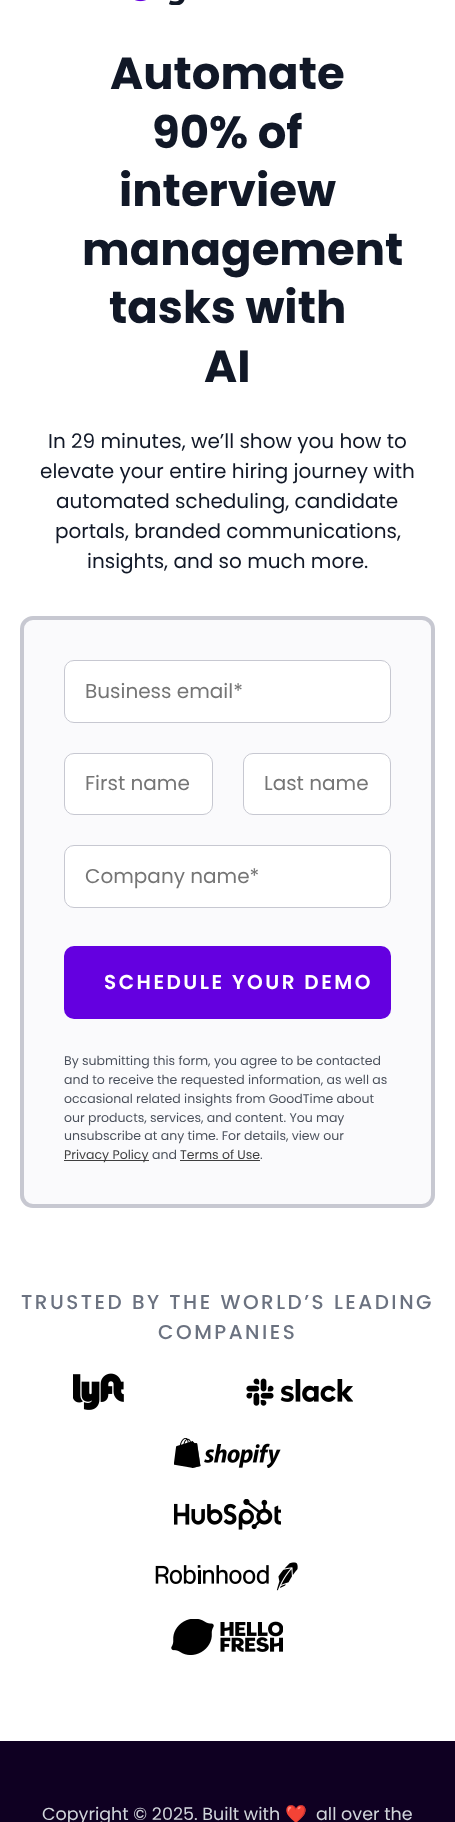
<svg xmlns="http://www.w3.org/2000/svg" width="455" height="1822" viewBox="0 0 455 1822">
  <rect width="100%" height="100%" fill="#0f0022"/>
  <rect x="0" y="0" width="455" height="1741" fill="#ffffff"/>
  <image x="135" y="0" width="50" height="5" href="img1.png"/>
  <text x="110" y="89" font-family="Poppins" font-size="45" font-weight="bold" fill="#111827">Automate</text>
  <text x="152" y="148" font-family="Poppins" font-size="45" font-weight="bold" fill="#111827">90% of</text>
  <text x="119" y="206" font-family="Poppins" font-size="45" font-weight="bold" fill="#111827">interview</text>
  <text x="82" y="265" font-family="Poppins" font-size="45" font-weight="bold" fill="#111827">management</text>
  <text x="109" y="323" font-family="Poppins" font-size="45" font-weight="bold" fill="#111827">tasks with</text>
  <text x="204" y="382" font-family="Poppins" font-size="45" font-weight="bold" fill="#111827">AI</text>
  <text x="48" y="448" font-family="Poppins" font-size="20" fill="#111827">In 29 minutes, we’ll show you how to</text>
  <text x="40" y="478" font-family="Poppins" font-size="20" fill="#111827">elevate your entire hiring journey with</text>
  <text x="56" y="508" font-family="Poppins" font-size="20" fill="#111827">automated scheduling, candidate</text>
  <text x="55" y="538" font-family="Poppins" font-size="20" fill="#111827">portals, branded communications,</text>
  <text x="87" y="568" font-family="Poppins" font-size="20" fill="#111827">insights, and so much more.</text>
  <rect x="22" y="618" width="411" height="588" rx="11" fill="#fafafc" stroke="#c7c8d1" stroke-width="4"/>
  <rect x="64.5" y="660.5" width="326" height="62" rx="9.5" fill="#ffffff" stroke="#c7c8d1"/>
  <text x="85" y="698" font-family="Poppins" font-size="20" fill="#757575">Business email*</text>
  <rect x="64.5" y="753.5" width="148" height="61" rx="9.5" fill="#ffffff" stroke="#c7c8d1"/>
  <text x="85" y="790" font-family="Poppins" font-size="20" fill="#757575">First name</text>
  <rect x="243.5" y="753.5" width="147" height="61" rx="9.5" fill="#ffffff" stroke="#c7c8d1"/>
  <text x="264" y="790" font-family="Poppins" font-size="20" fill="#757575">Last name</text>
  <rect x="64.5" y="845.5" width="326" height="62" rx="9.5" fill="#ffffff" stroke="#c7c8d1"/>
  <text x="85" y="883" font-family="Poppins" font-size="20" fill="#757575">Company name*</text>
  <rect x="64" y="946" width="327" height="73" rx="10" fill="#6400e0"/>
  <text x="104" y="989" font-family="Poppins" font-size="20" font-weight="600" letter-spacing="2.5" fill="#ffffff">SCHEDULE YOUR DEMO</text>
  <text x="64" y="1065" font-family="Poppins" font-size="12.5" fill="#4b515c">By submitting this form, you agree to be contacted</text>
  <text x="64" y="1084" font-family="Poppins" font-size="12.5" fill="#4b515c">and to receive the requested information, as well as</text>
  <text x="64" y="1103" font-family="Poppins" font-size="12.5" fill="#4b515c">occasional related insights from GoodTime about</text>
  <text x="64" y="1122" font-family="Poppins" font-size="12.5" fill="#4b515c">our products, services, and content. You may</text>
  <text x="64" y="1140" font-family="Poppins" font-size="12.5" fill="#4b515c">unsubscribe at any time. For details, view our</text>
  <rect x="64" y="1160" width="85" height="1" fill="#3f3f3f"/>
  <text x="64" y="1159" font-family="Poppins" font-size="12.5" fill="#3f3f3f">Privacy Policy</text>
  <text x="152" y="1159" font-family="Poppins" font-size="12.5" fill="#4b515c">and</text>
  <text x="180" y="1159" font-family="Poppins" font-size="12.5" fill="#3f3f3f">Terms of Use</text>
  <rect x="180" y="1160" width="80" height="1" fill="#3f3f3f"/>
  <text x="260" y="1159" font-family="Poppins" font-size="12.5" fill="#4b515c">.</text>
  <text x="21" y="1309" font-family="Poppins" font-size="20" font-weight="500" letter-spacing="2.5" fill="#6b7280">TRUSTED BY THE WORLD’S LEADING</text>
  <text x="158" y="1339" font-family="Poppins" font-size="20" font-weight="500" letter-spacing="2.5" fill="#6b7280">COMPANIES</text>
  <image x="73" y="1373" width="51" height="37" href="img2.png"/>
  <image x="246" y="1378" width="107" height="28" href="img3.png"/>
  <image x="174" y="1438" width="107" height="30" href="img4.png"/>
  <image x="174" y="1499" width="107" height="31" href="img5.png"/>
  <image x="155" y="1562" width="143" height="29" href="img6.png"/>
  <image x="171" y="1619" width="112" height="36" href="img7.png"/>
  <text x="42" y="1820" font-family="Poppins" font-size="17.5" fill="#d1d5db">Copyright © 2025. Built with</text>
  <text x="285" y="1820" font-family="Noto Color Emoji" font-size="17.5" fill="#d1d5db">❤️</text>
  <text x="316" y="1820" font-family="Poppins" font-size="17.5" fill="#d1d5db">all over the</text>
</svg>
